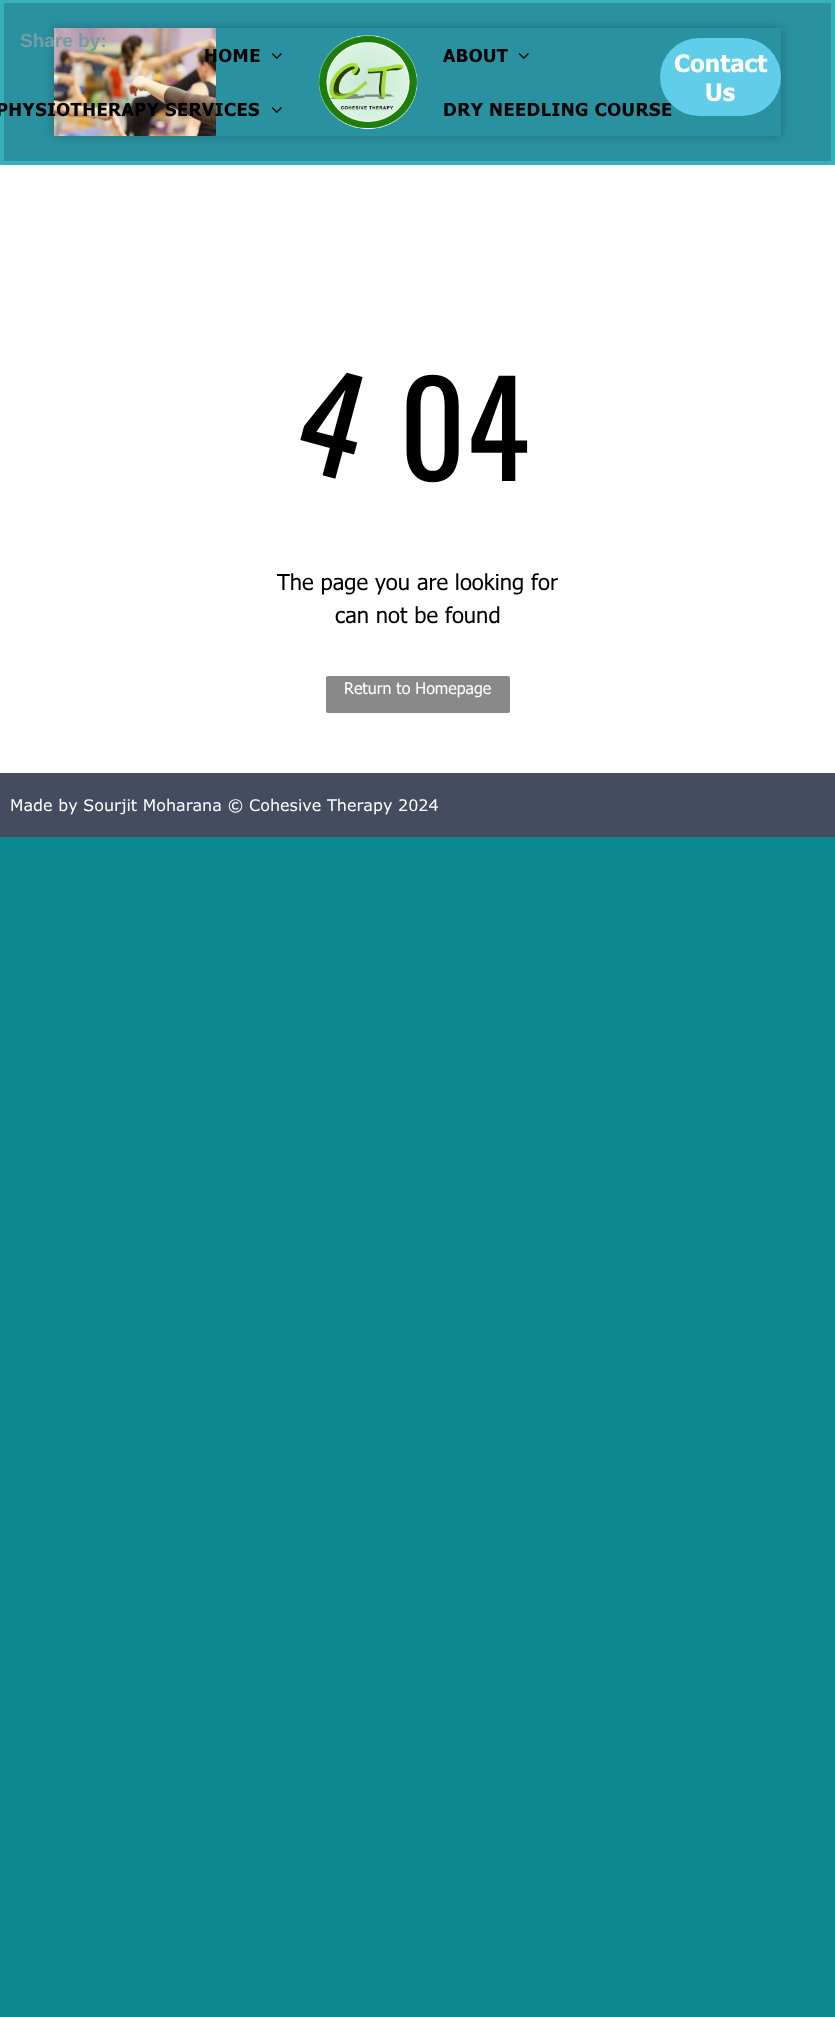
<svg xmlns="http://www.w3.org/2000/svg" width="835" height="2017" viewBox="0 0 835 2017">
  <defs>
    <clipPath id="clip1"><path d="M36 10H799V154H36ZM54 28H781V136H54Z" clip-rule="evenodd"/></clipPath>
    <filter id="blur1" x="-50%" y="-200%" width="200%" height="500%"><feGaussianBlur stdDeviation="5.5"/></filter>
  </defs>
  <rect width="100%" height="100%" fill="#0d888f"/>
  <rect x="2" y="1" width="831" height="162" fill="#2a91a1" stroke="#37b0ba" stroke-width="4"/>
  <g clip-path="url(#clip1)">
    <rect x="54" y="28" width="727" height="108" fill="#000000" fill-opacity="0.25" filter="url(#blur1)"/>
  </g>
  <image x="54" y="28" width="162" height="108" href="img1.png"/>
  <text x="20" y="47" font-family="Liberation Sans" font-size="19" font-weight="bold" fill="#789ca6">Share by:</text>
  <text x="204" y="62" font-family="Tahoma" font-size="18" font-weight="bold" letter-spacing="0.5" fill="#020506">HOME</text>
  <image x="271" y="53" width="11" height="6" href="img2.png"/>
  <text x="-4" y="116" font-family="Tahoma" font-size="18" font-weight="bold" letter-spacing="0.5" fill="#000000">PHYSIOTHERAPY SERVICES</text>
  <image x="271" y="107" width="11" height="6" href="img2.png"/>
  <image x="318" y="35" width="100" height="95" href="img3.png"/>
  <text x="443" y="62" font-family="Tahoma" font-size="18" font-weight="bold" letter-spacing="0.5" fill="#020506">ABOUT</text>
  <image x="518" y="53" width="11" height="6" href="img2.png"/>
  <text x="443" y="116" font-family="Tahoma" font-size="18" font-weight="bold" letter-spacing="0.5" fill="#020506">DRY NEEDLING COURSE</text>
  <rect x="660" y="38" width="121" height="78" rx="39" fill="#60cde9"/>
  <text x="674" y="72" font-family="Tahoma" font-size="24" font-weight="bold" fill="#ffffff">Contact</text>
  <text x="705" y="101" font-family="Tahoma" font-size="24" font-weight="bold" fill="#ffffff">Us</text>
  <rect x="0" y="165" width="835" height="608" fill="#ffffff"/>
  <text x="288" y="466" transform="rotate(15 288 466)" font-family="Oswald" font-size="130" fill="#000000">4</text>
  <text x="399" y="481" font-family="Oswald" font-size="130" fill="#000000">04</text>
  <text x="277" y="590" font-family="Tahoma" font-size="22" fill="#000000">The page you are looking for</text>
  <text x="335" y="623" font-family="Tahoma" font-size="22" fill="#000000">can not be found</text>
  <rect x="326" y="676" width="184" height="37" rx="2" fill="#898989"/>
  <text x="344" y="694" font-family="Tahoma" font-size="16" fill="#ffffff">Return to Homepage</text>
  <rect x="0" y="773" width="835" height="64" fill="#464c60"/>
  <text x="10" y="811" font-family="Verdana" font-size="16" fill="#ffffff">Made by Sourjit Moharana © Cohesive Therapy 2024</text>
</svg>
